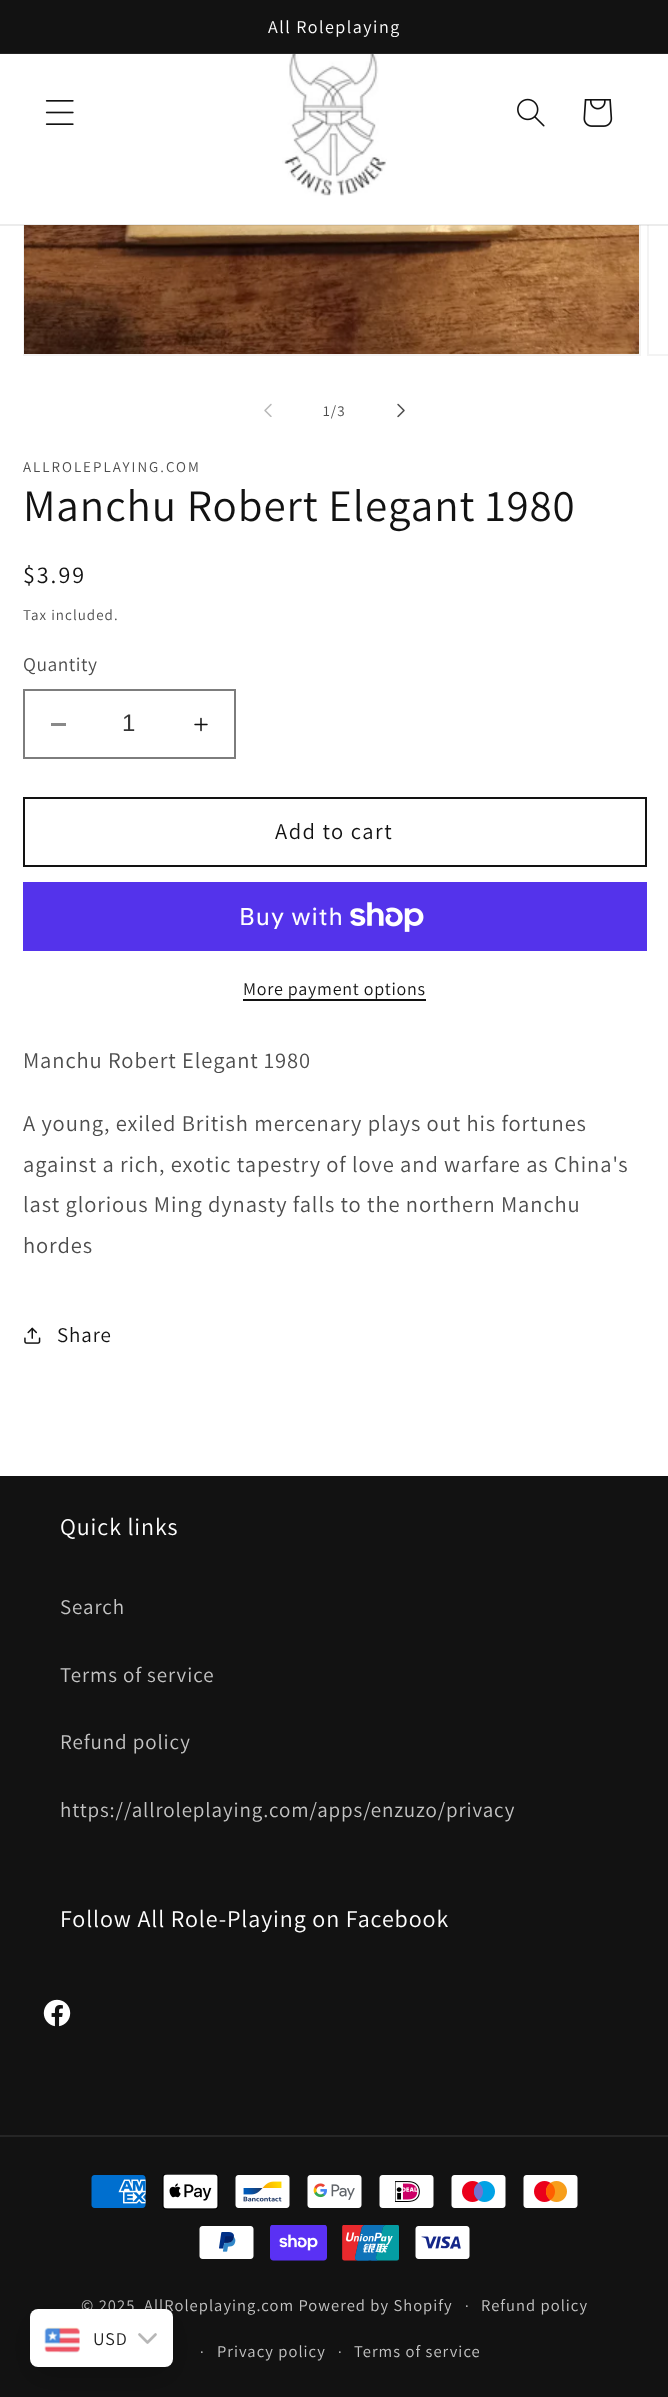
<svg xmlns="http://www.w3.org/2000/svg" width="668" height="2397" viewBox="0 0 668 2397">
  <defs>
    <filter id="blur1" x="-50%" y="-200%" width="200%" height="500%"><feGaussianBlur stdDeviation="15"/></filter>
  </defs>
  <rect width="100%" height="100%" fill="#ffffff"/>
  <rect x="24" y="-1" width="616" height="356" fill="none" stroke="#f3f3f3" stroke-width="2"/>
  <rect x="648" y="-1" width="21" height="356" fill="none" stroke="#f3f3f3" stroke-width="2"/>
  <rect x="0" y="0" width="668" height="54" fill="#121212"/>
  <rect x="23" y="54" width="626" height="171" fill="#ffffff"/>
  <image x="282" y="54" width="105" height="142" href="img2.png"/>
  <rect x="0" y="53" width="668" height="2" fill="#ffffff" fill-opacity="0.08"/>
  <text x="268" y="33" font-family="Assistant" font-size="18" letter-spacing="1.5" fill="#ffffff">All Roleplaying</text>
  <image x="24" y="225" width="615" height="129" href="img5.png"/>
  <rect x="0" y="224" width="668" height="2" fill="#121212" fill-opacity="0.08"/>
  <image x="45" y="100" width="29" height="25" href="img1.png"/>
  <image x="517" y="98" width="28" height="29" href="img3.png"/>
  <image x="583" y="99" width="30" height="28" href="img4.png"/>
  <image x="264" y="403" width="8" height="14" href="img6.png"/>
  <text x="323" y="416" font-family="Assistant" font-size="15" letter-spacing="1.05" fill="#4d4d4d">1/3</text>
  <image x="397" y="403" width="8" height="15" href="img7.png"/>
  <text x="23" y="472" font-family="Assistant" font-size="15" letter-spacing="2" fill="#4d4d4d">ALLROLEPLAYING.COM</text>
  <text x="23" y="521" font-family="Assistant" font-size="45" letter-spacing="0.9" fill="#121212">Manchu Robert Elegant 1980</text>
  <text x="23" y="583" font-family="Assistant" font-size="24" letter-spacing="2" fill="#121212">$3.99</text>
  <text x="23" y="620" font-family="Assistant" font-size="15" letter-spacing="1.05" fill="#4d4d4d">Tax included.</text>
  <text x="23" y="671" font-family="Assistant" font-size="19.5" letter-spacing="0.5" fill="#4d4d4d">Quantity</text>
  <rect x="51" y="723" width="15" height="3" fill="#898989"/>
  <image x="194" y="717" width="14" height="15" href="img8.png"/>
  <rect x="24" y="690" width="211" height="68" fill="none" stroke="#7d7d7d" stroke-width="2"/>
  <text x="122" y="731" font-family="Liberation Sans" font-size="24" fill="#363636">1</text>
  <rect x="24" y="798" width="622" height="68" fill="none" stroke="#121212" stroke-width="2"/>
  <text x="275" y="839" font-family="Assistant" font-size="22.5" letter-spacing="1.5" fill="#121212">Add to cart</text>
  <rect x="23" y="882" width="624" height="69" fill="#5433eb"/>
  <text x="239" y="925" font-family="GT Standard" font-size="24" letter-spacing="0.9" fill="#ffffff">Buy with</text>
  <image x="350" y="902" width="74" height="30" href="img9.png"/>
  <text x="243" y="995" font-family="Assistant" font-size="18" letter-spacing="0.75" fill="#121212">More payment options</text>
  <rect x="243" y="999" width="183" height="2" fill="#121212"/>
  <text x="23" y="1068" font-family="Assistant" font-size="22.5" letter-spacing="0.9" fill="#4d4d4d">Manchu Robert Elegant 1980</text>
  <text x="23" y="1131" font-family="Assistant" font-size="22.5" letter-spacing="0.9" fill="#4d4d4d">A young, exiled British mercenary plays out his fortunes</text>
  <text x="23" y="1172" font-family="Assistant" font-size="22.5" letter-spacing="0.9" fill="#4d4d4d">against a rich, exotic tapestry of love and warfare as China's</text>
  <text x="23" y="1212" font-family="Assistant" font-size="22.5" letter-spacing="0.9" fill="#4d4d4d">last glorious Ming dynasty falls to the northern Manchu</text>
  <text x="23" y="1253" font-family="Assistant" font-size="22.5" letter-spacing="0.9" fill="#4d4d4d">hordes</text>
  <image x="24" y="1327" width="17" height="17" href="img10.png"/>
  <text x="57" y="1342" font-family="Assistant" font-size="21" letter-spacing="0.9" fill="#121212">Share</text>
  <rect x="0" y="1476" width="668" height="921" fill="#121212"/>
  <text x="60" y="1535" font-family="Assistant" font-size="24" letter-spacing="0.9" fill="#ffffff">Quick links</text>
  <text x="60" y="1614" font-family="Assistant" font-size="21" letter-spacing="0.9" fill="#c4c4c4">Search</text>
  <text x="60" y="1682" font-family="Assistant" font-size="21" letter-spacing="0.9" fill="#c4c4c4">Terms of service</text>
  <text x="60" y="1749" font-family="Assistant" font-size="21" letter-spacing="0.9" fill="#c4c4c4">Refund policy</text>
  <text x="60" y="1817" font-family="Assistant" font-size="21" letter-spacing="0.9" fill="#c4c4c4">https://allroleplaying.com/apps/enzuzo/privacy</text>
  <text x="60" y="1927" font-family="Assistant" font-size="24" letter-spacing="0.9" fill="#ffffff">Follow All Role-Playing on Facebook</text>
  <image x="43" y="1999" width="28" height="28" href="img11.png"/>
  <rect x="0" y="2135" width="668" height="2" fill="#252525"/>
  <image x="91" y="2175" width="55" height="33" href="img12.png"/>
  <image x="162" y="2174" width="57" height="36" href="img13.png"/>
  <image x="235" y="2175" width="55" height="33" href="img14.png"/>
  <image x="307" y="2175" width="55" height="33" href="img15.png"/>
  <image x="379" y="2175" width="55" height="33" href="img16.png"/>
  <image x="451" y="2175" width="55" height="33" href="img17.png"/>
  <image x="523" y="2175" width="55" height="33" href="img18.png"/>
  <image x="199" y="2226" width="55" height="33" href="img19.png"/>
  <image x="270" y="2225" width="57" height="36" href="img20.png"/>
  <image x="342" y="2225" width="57" height="36" href="img21.png"/>
  <image x="415" y="2226" width="55" height="33" href="img22.png"/>
  <text x="144" y="2311" font-family="Assistant" font-size="16.5" letter-spacing="1.05" fill="#c4c4c4">AllRoleplaying.com Powered by Shopify</text>
  <text x="81" y="2311" font-family="Assistant" font-size="16.5" letter-spacing="1.05" fill="#c4c4c4">© 2025</text>
  <text x="465" y="2311" font-family="Assistant" font-size="15" letter-spacing="1.05" fill="#c4c4c4">·</text>
  <text x="481" y="2311" font-family="Assistant" font-size="16.5" letter-spacing="1.05" fill="#c4c4c4">Refund policy</text>
  <text x="200" y="2357" font-family="Assistant" font-size="15" letter-spacing="1.05" fill="#c4c4c4">·</text>
  <text x="217" y="2357" font-family="Assistant" font-size="16.5" letter-spacing="1.05" fill="#c4c4c4">Privacy policy</text>
  <text x="338" y="2357" font-family="Assistant" font-size="15" letter-spacing="1.05" fill="#c4c4c4">·</text>
  <text x="354" y="2357" font-family="Assistant" font-size="16.5" letter-spacing="1.05" fill="#c4c4c4">Terms of service</text>
  <rect x="30" y="2318" width="143" height="58" rx="8" fill="#000000" fill-opacity="0.19" filter="url(#blur1)"/>
  <rect x="30" y="2309" width="143" height="58" rx="8" fill="#ffffff"/>
  <image x="44" y="2327" width="36" height="26" href="img23.png"/>
  <text x="93" y="2345" font-family="Assistant" font-size="18" letter-spacing="0.9" fill="#1e1e1e">USD</text>
  <path d="M139.5 2334.5L147.5 2342.5L155.5 2334.5" fill="none" stroke="#b7b7b7" stroke-width="2.7" stroke-linecap="round" stroke-linejoin="round"/>
</svg>
